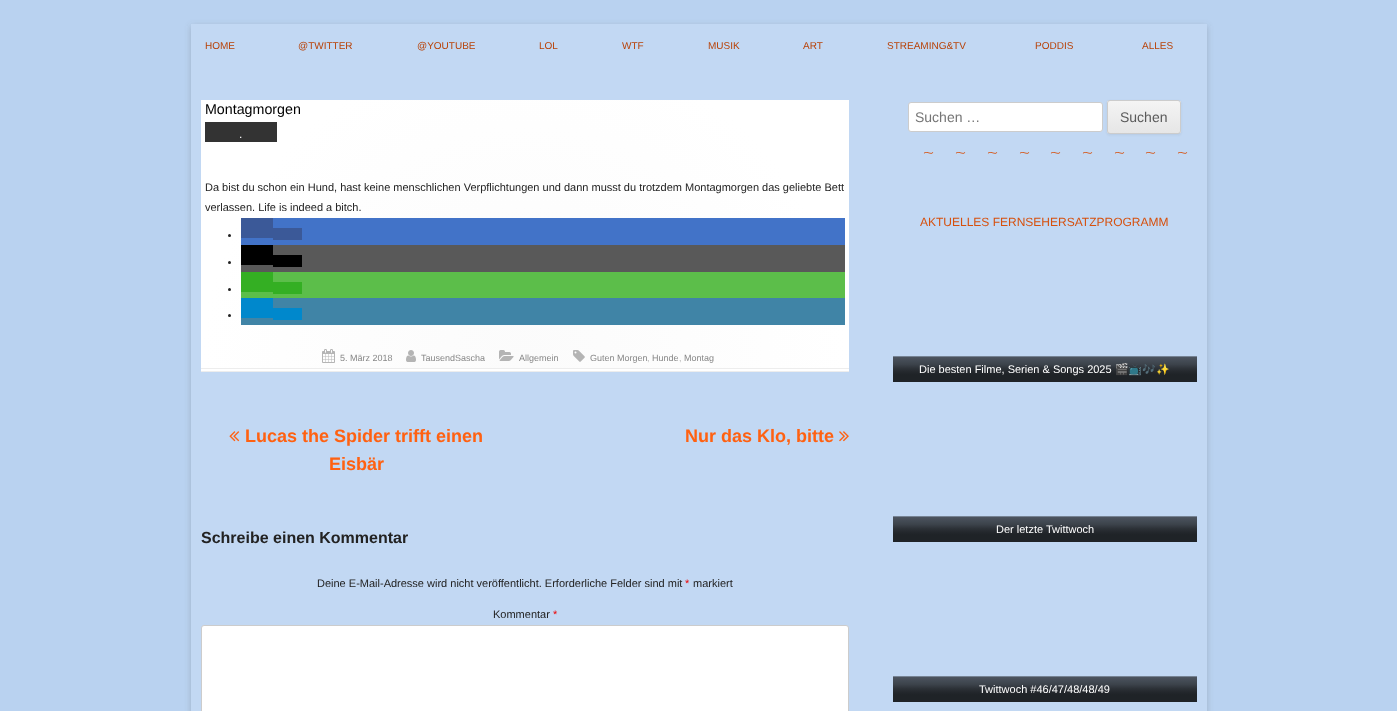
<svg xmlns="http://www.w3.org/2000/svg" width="1397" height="711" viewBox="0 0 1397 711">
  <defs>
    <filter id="blur1" x="-50%" y="-200%" width="200%" height="500%"><feGaussianBlur stdDeviation="3"/></filter>
    <radialGradient id="g1" gradientUnits="userSpaceOnUse" cx="525" cy="368" r="324"><stop offset="0" stop-color="#fbfbfb"/><stop offset="1" stop-color="#ffffff"/></radialGradient>
    <filter id="blur2" x="-50%" y="-200%" width="200%" height="500%"><feGaussianBlur stdDeviation="1"/></filter>
    <clipPath id="clip1"><rect x="1107" y="100" width="74" height="34" rx="3"/></clipPath>
    <linearGradient id="g2" gradientUnits="userSpaceOnUse" x1="1144" y1="101" x2="1144" y2="133"><stop offset="0" stop-color="#f4f4f4"/><stop offset="1" stop-color="#e6e6e6"/></linearGradient>
    <linearGradient id="g3" gradientUnits="userSpaceOnUse" x1="1045" y1="356" x2="1045" y2="382"><stop offset="0" stop-color="#9dafc5"/><stop offset="0.04" stop-color="#4c545f"/><stop offset="0.32" stop-color="#3c434b"/><stop offset="0.48" stop-color="#2d3238"/><stop offset="0.59" stop-color="#25292e"/><stop offset="0.72" stop-color="#1f2327"/><stop offset="0.96" stop-color="#1f2327"/></linearGradient>
    <linearGradient id="g4" gradientUnits="userSpaceOnUse" x1="1045" y1="516" x2="1045" y2="542"><stop offset="0" stop-color="#9dafc5"/><stop offset="0.04" stop-color="#4c545f"/><stop offset="0.32" stop-color="#3c434b"/><stop offset="0.48" stop-color="#2d3238"/><stop offset="0.59" stop-color="#25292e"/><stop offset="0.72" stop-color="#1f2327"/><stop offset="0.96" stop-color="#1f2327"/></linearGradient>
    <linearGradient id="g5" gradientUnits="userSpaceOnUse" x1="1045" y1="676" x2="1045" y2="702"><stop offset="0" stop-color="#9dafc5"/><stop offset="0.04" stop-color="#4c545f"/><stop offset="0.32" stop-color="#3c434b"/><stop offset="0.48" stop-color="#2d3238"/><stop offset="0.59" stop-color="#25292e"/><stop offset="0.72" stop-color="#1f2327"/><stop offset="0.96" stop-color="#1f2327"/></linearGradient>
  </defs>
  <rect width="100%" height="100%" fill="#b9d2f0"/>
  <rect x="191" y="26" width="1016" height="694" fill="#646464" fill-opacity="0.3" filter="url(#blur1)"/>
  <rect x="191" y="24" width="1016" height="687" fill="#c2d8f3"/>
  <text x="205" y="49" font-family="Liberation Sans" font-size="10" fill="#b84106">HOME</text>
  <text x="298" y="49" font-family="Liberation Sans" font-size="10" fill="#b84106">@TWITTER</text>
  <text x="417" y="49" font-family="Liberation Sans" font-size="10" fill="#b84106">@YOUTUBE</text>
  <text x="539" y="49" font-family="Liberation Sans" font-size="10" fill="#b84106">LOL</text>
  <text x="622" y="49" font-family="Liberation Sans" font-size="10" fill="#b84106">WTF</text>
  <text x="708" y="49" font-family="Liberation Sans" font-size="10" fill="#b84106">MUSIK</text>
  <text x="803" y="49" font-family="Liberation Sans" font-size="10" fill="#b84106">ART</text>
  <text x="887" y="49" font-family="Liberation Sans" font-size="10" fill="#b84106">STREAMING&amp;TV</text>
  <text x="1035" y="49" font-family="Liberation Sans" font-size="10" fill="#b84106">PODDIS</text>
  <text x="1142" y="49" font-family="Liberation Sans" font-size="10" fill="#b84106">ALLES</text>
  <rect x="201" y="369" width="648" height="2" fill="#ffffff"/>
  <rect x="201" y="100" width="648" height="268" fill="url(#g1)"/>
  <rect x="201" y="368" width="648" height="1" fill="#ededed"/>
  <rect x="201" y="371" width="648" height="1" fill="#ededed"/>
  <text x="205" y="114" font-family="Liberation Sans" font-size="14.25" fill="#000000">Montagmorgen</text>
  <rect x="205" y="122" width="72" height="20" fill="#333333"/>
  <text x="239" y="138" font-family="Liberation Sans" font-size="12" fill="#ffffff">.</text>
  <text x="205" y="191" font-family="Liberation Sans" font-size="11" fill="#222222">Da bist du schon ein Hund, hast keine menschlichen Verpflichtungen und dann musst du trotzdem Montagmorgen das geliebte Bett</text>
  <text x="205" y="211" font-family="Liberation Sans" font-size="11" fill="#222222">verlassen. Life is indeed a bitch.</text>
  <rect x="241" y="218" width="604" height="27" fill="#4273c8"/>
  <circle cx="229.5" cy="235.5" r="1.5" fill="#222222"/>
  <rect x="241" y="218" width="32" height="20" fill="#3b5998"/>
  <rect x="273" y="228" width="29" height="12" fill="#3b5998"/>
  <rect x="241" y="245" width="604" height="27" fill="#595959"/>
  <circle cx="229.5" cy="262.5" r="1.5" fill="#222222"/>
  <rect x="241" y="245" width="32" height="20" fill="#000000"/>
  <rect x="273" y="255" width="29" height="12" fill="#000000"/>
  <rect x="241" y="272" width="604" height="26" fill="#5cbe4a"/>
  <circle cx="229.5" cy="289.5" r="1.5" fill="#222222"/>
  <rect x="241" y="272" width="32" height="20" fill="#34af23"/>
  <rect x="273" y="282" width="29" height="12" fill="#34af23"/>
  <rect x="241" y="298" width="604" height="27" fill="#4084a6"/>
  <circle cx="229.5" cy="315.5" r="1.5" fill="#222222"/>
  <rect x="241" y="298" width="32" height="20" fill="#0088cc"/>
  <rect x="273" y="308" width="29" height="12" fill="#0088cc"/>
  <image x="322" y="349" width="13" height="14" href="img1.png"/>
  <text x="340" y="361" font-family="Liberation Sans" font-size="9" fill="#878787">5. März 2018</text>
  <image x="406" y="350" width="10" height="12" href="img2.png"/>
  <text x="421" y="361" font-family="Liberation Sans" font-size="9" fill="#878787">TausendSascha</text>
  <image x="499" y="350" width="15" height="11" href="img3.png"/>
  <text x="519" y="361" font-family="Liberation Sans" font-size="9" fill="#878787">Allgemein</text>
  <image x="573" y="350" width="12" height="12" href="img4.png"/>
  <text x="590" y="361" font-family="Liberation Sans" font-size="9" fill="#878787">Guten Morgen</text>
  <text x="647" y="361" font-family="Liberation Sans" font-size="9" fill="#b4b4b4">,</text>
  <text x="652" y="361" font-family="Liberation Sans" font-size="9" fill="#878787">Hunde</text>
  <text x="679" y="361" font-family="Liberation Sans" font-size="9" fill="#b4b4b4">,</text>
  <text x="684" y="361" font-family="Liberation Sans" font-size="9" fill="#878787">Montag</text>
  <image x="229" y="431" width="11" height="11" href="img5.png"/>
  <text x="245" y="442" font-family="Liberation Sans" font-size="18" font-weight="bold" fill="#ff6111">Lucas the Spider trifft einen</text>
  <text x="329" y="470" font-family="Liberation Sans" font-size="18" font-weight="bold" fill="#ff6111">Eisbär</text>
  <text x="685" y="442" font-family="Liberation Sans" font-size="18" font-weight="bold" fill="#ff6111">Nur das Klo, bitte</text>
  <image x="839" y="431" width="10" height="11" href="img6.png"/>
  <text x="201" y="543" font-family="Liberation Sans" font-size="16" font-weight="bold" fill="#222222">Schreibe einen Kommentar</text>
  <text x="317" y="587" font-family="Liberation Sans" font-size="11" fill="#222222">Deine E-Mail-Adresse wird nicht veröffentlicht. Erforderliche Felder sind mit</text>
  <text x="685" y="587" font-family="Liberation Sans" font-size="11" fill="#ee0000">*</text>
  <text x="693" y="587" font-family="Liberation Sans" font-size="11" fill="#222222">markiert</text>
  <text x="493" y="618" font-family="Liberation Sans" font-size="11" fill="#222222">Kommentar</text>
  <text x="553" y="618" font-family="Liberation Sans" font-size="11" fill="#ee0000">*</text>
  <rect x="201.5" y="625.5" width="647" height="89" rx="2.5" fill="#ffffff" stroke="#cccccc"/>
  <rect x="908.5" y="102.5" width="194" height="29" rx="2.5" fill="#ffffff" stroke="#cccccc"/>
  <text x="915" y="122" font-family="Liberation Sans" font-size="14" fill="#757575">Suchen …</text>
  <rect x="1107" y="101" width="74" height="34" rx="3" fill="#404040" fill-opacity="0.1" filter="url(#blur2)"/>
  <g clip-path="url(#clip1)">
    <rect x="1107" y="101" width="74" height="32" fill="url(#g2)"/>
  </g>
  <rect x="1107.5" y="100.5" width="73" height="33" rx="2.5" fill="none" stroke="#cccccc"/>
  <text x="1120" y="122" font-family="Liberation Sans" font-size="14" fill="#5a5a5a">Suchen</text>
  <text x="923" y="156" font-family="Noto Sans" font-size="11" fill="#d6500d">⁓</text>
  <text x="955" y="156" font-family="Noto Sans" font-size="11" fill="#d6500d">⁓</text>
  <text x="987" y="156" font-family="Noto Sans" font-size="11" fill="#d6500d">⁓</text>
  <text x="1019" y="156" font-family="Noto Sans" font-size="11" fill="#d6500d">⁓</text>
  <text x="1050" y="156" font-family="Noto Sans" font-size="11" fill="#d6500d">⁓</text>
  <text x="1082" y="156" font-family="Noto Sans" font-size="11" fill="#d6500d">⁓</text>
  <text x="1114" y="156" font-family="Noto Sans" font-size="11" fill="#d6500d">⁓</text>
  <text x="1145" y="156" font-family="Noto Sans" font-size="11" fill="#d6500d">⁓</text>
  <text x="1177" y="156" font-family="Noto Sans" font-size="11" fill="#d6500d">⁓</text>
  <text x="920" y="226" font-family="Liberation Sans" font-size="12" fill="#d6500d">AKTUELLES FERNSEHERSATZPROGRAMM</text>
  <rect x="893" y="356" width="304" height="26" fill="url(#g3)"/>
  <text x="919" y="373" font-family="Liberation Sans" font-size="11" fill="#ffffff">Die besten Filme, Serien &amp; Songs 2025</text>
  <text x="1115" y="373" font-family="Noto Color Emoji" font-size="11" fill="#ffffff">🎬📺🎶✨</text>
  <rect x="893" y="516" width="304" height="26" fill="url(#g4)"/>
  <text x="996" y="533" font-family="Liberation Sans" font-size="11" fill="#ffffff">Der letzte Twittwoch</text>
  <rect x="893" y="676" width="304" height="26" fill="url(#g5)"/>
  <text x="979" y="693" font-family="Liberation Sans" font-size="11" fill="#ffffff">Twittwoch #46/47/48/48/49</text>
</svg>
